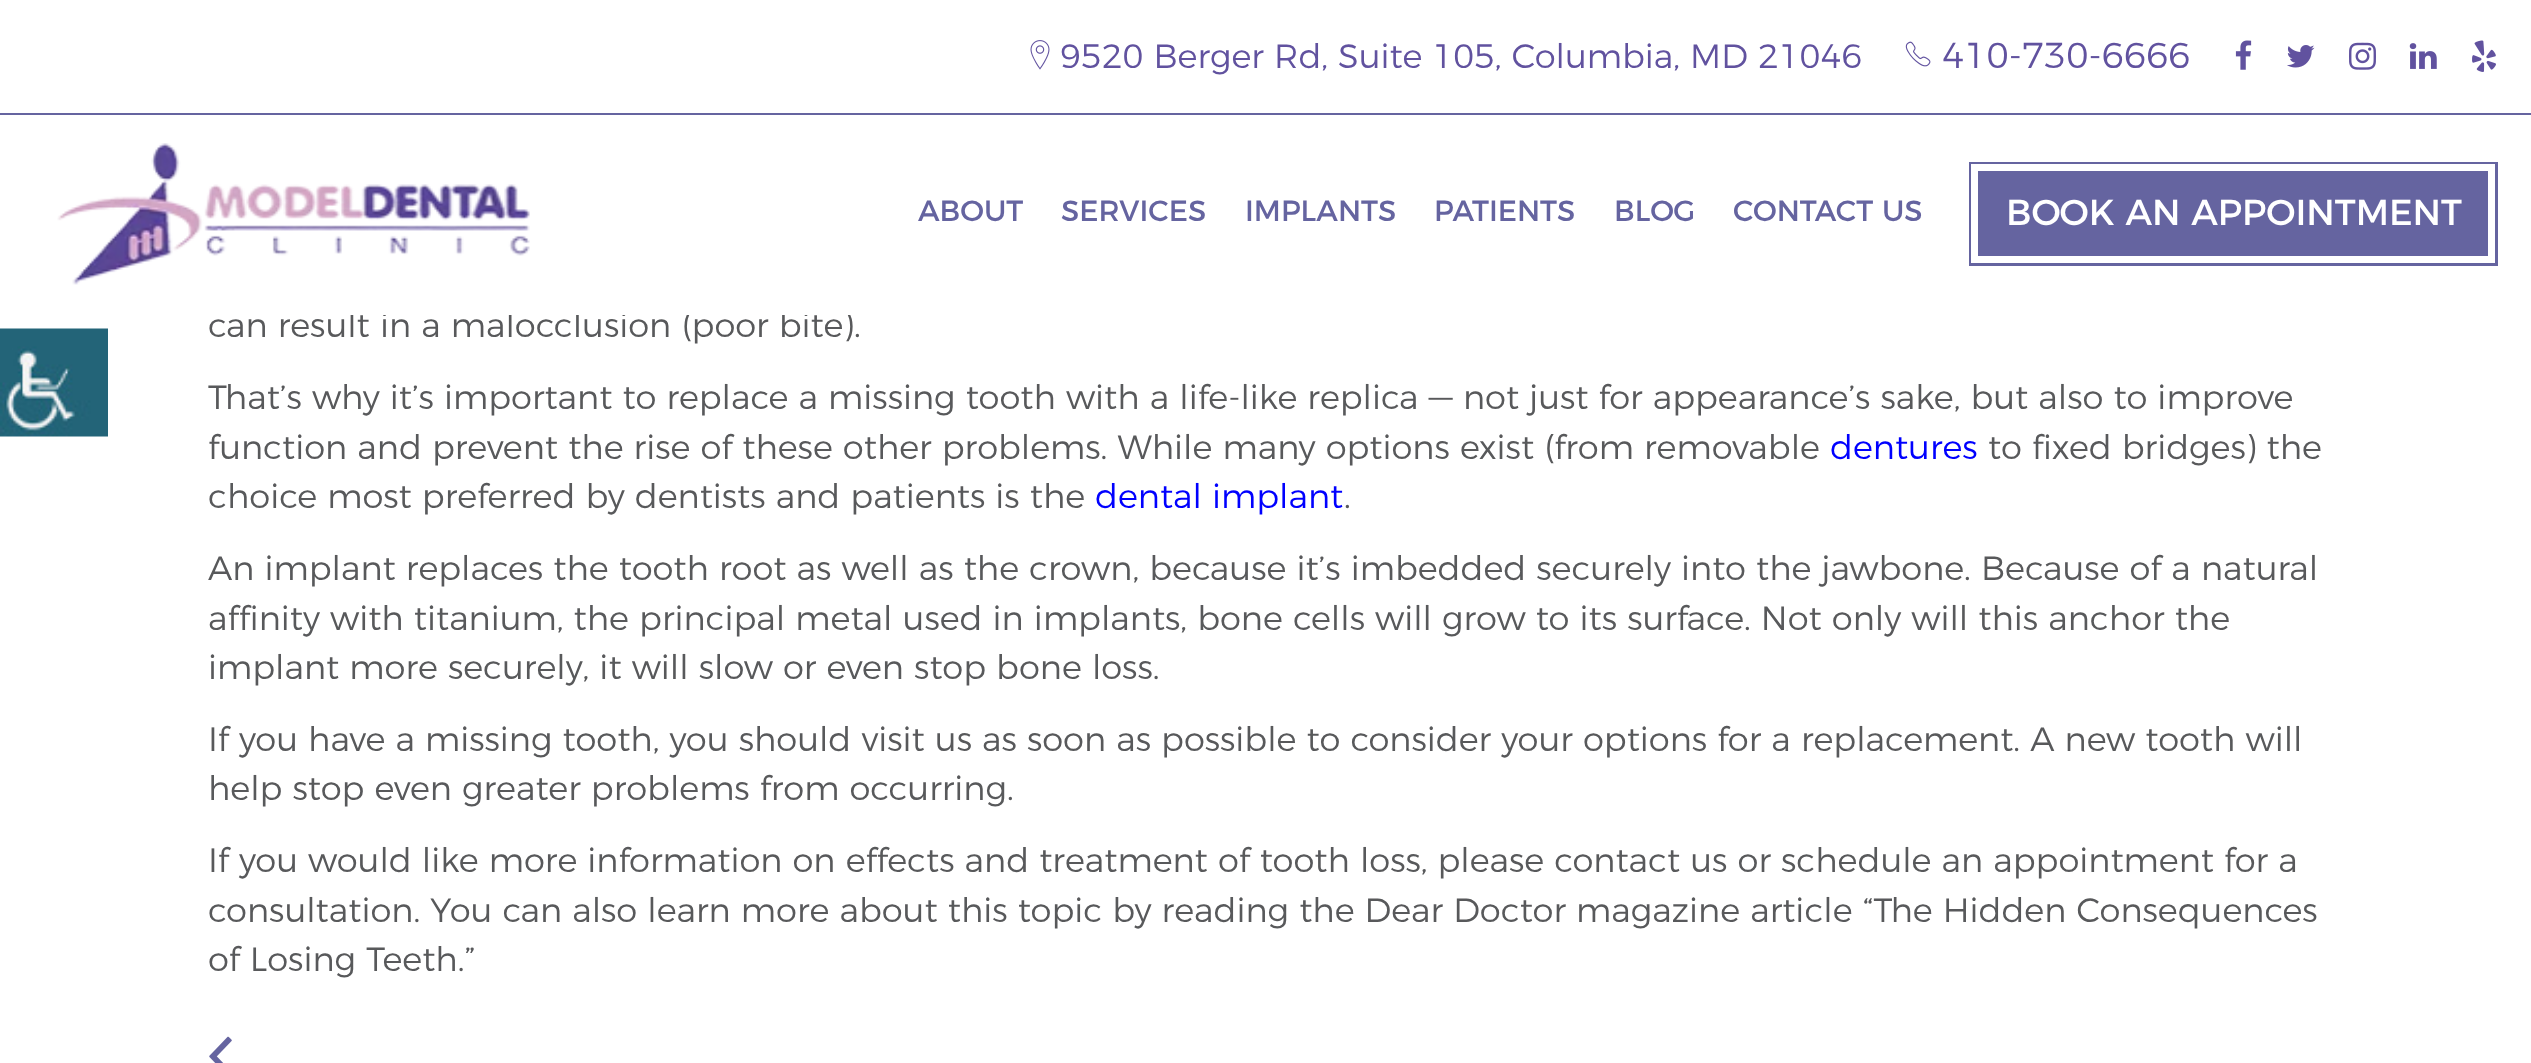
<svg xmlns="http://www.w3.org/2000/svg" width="2531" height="1063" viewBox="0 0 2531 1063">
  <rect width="100%" height="100%" fill="#ffffff"/>
  <image x="0" y="328" width="108" height="109" href="img1.png"/>
  <rect x="0" y="113" width="2531" height="2" fill="#6564a0"/>
  <image x="1030" y="40" width="20" height="30" href="img2.png"/>
  <text x="1060" y="68" font-family="Montserrat" font-size="33.75" font-weight="300" fill="#61529f">9520 Berger Rd, Suite 105, Columbia, MD 21046</text>
  <image x="1905" y="41" width="26" height="26" href="img3.png"/>
  <text x="1942" y="68" font-family="Montserrat" font-size="36" font-weight="300" fill="#61529f">410-730-6666</text>
  <image x="2235" y="40" width="17" height="30" href="img4.png"/>
  <image x="2287" y="45" width="28" height="23" href="img5.png"/>
  <image x="2349" y="42" width="27" height="28" href="img6.png"/>
  <image x="2409" y="43" width="28" height="26" href="img7.png"/>
  <image x="2472" y="40" width="24" height="32" href="img8.png"/>
  <text x="208" y="337" font-family="Montserrat" font-size="33.75" font-weight="300" fill="#58595b">can result in a malocclusion (poor bite).</text>
  <rect x="350" y="311" width="501" height="4" fill="#ffffff"/>
  <image x="57" y="143" width="473" height="142" href="img9.png"/>
  <text x="918" y="221" font-family="Montserrat" font-size="29.25" fill="#6564a0">ABOUT</text>
  <text x="1061" y="221" font-family="Montserrat" font-size="29.25" fill="#6564a0">SERVICES</text>
  <text x="1245" y="221" font-family="Montserrat" font-size="29.25" fill="#6564a0">IMPLANTS</text>
  <text x="1434" y="221" font-family="Montserrat" font-size="29.25" fill="#6564a0">PATIENTS</text>
  <text x="1614" y="221" font-family="Montserrat" font-size="29.25" fill="#6564a0">BLOG</text>
  <text x="1733" y="221" font-family="Montserrat" font-size="29.25" fill="#6564a0">CONTACT US</text>
  <rect x="1969" y="162" width="529" height="104" fill="#6564a0"/>
  <rect x="1974.5" y="167.5" width="517" height="92" fill="none" stroke="#ffffff" stroke-width="7"/>
  <text x="2006" y="225" font-family="Montserrat" font-size="36" fill="#ffffff">BOOK AN APPOINTMENT</text>
  <text x="208" y="409" font-family="Montserrat" font-size="33.75" font-weight="300" fill="#58595b">That’s why it’s important to replace a missing tooth with a life-like replica — not just for appearance’s sake, but also to improve</text>
  <text x="208" y="459" font-family="Montserrat" font-size="33.75" font-weight="300" fill="#58595b">function and prevent the rise of these other problems. While many options exist (from removable</text>
  <text x="1830" y="459" font-family="Montserrat" font-size="33.75" font-weight="300" fill="#0000ff">dentures</text>
  <text x="1988" y="459" font-family="Montserrat" font-size="33.75" font-weight="300" fill="#58595b">to fixed bridges) the</text>
  <text x="208" y="508" font-family="Montserrat" font-size="33.75" font-weight="300" fill="#58595b">choice most preferred by dentists and patients is the</text>
  <text x="1095" y="508" font-family="Montserrat" font-size="33.75" font-weight="300" fill="#0000ff">dental implant</text>
  <text x="1344" y="508" font-family="Montserrat" font-size="33.75" font-weight="300" fill="#58595b">.</text>
  <text x="208" y="580" font-family="Montserrat" font-size="33.75" font-weight="300" fill="#58595b">An implant replaces the tooth root as well as the crown, because it’s imbedded securely into the jawbone. Because of a natural</text>
  <text x="208" y="630" font-family="Montserrat" font-size="33.75" font-weight="300" fill="#58595b">affinity with titanium, the principal metal used in implants, bone cells will grow to its surface. Not only will this anchor the</text>
  <text x="208" y="679" font-family="Montserrat" font-size="33.75" font-weight="300" fill="#58595b">implant more securely, it will slow or even stop bone loss.</text>
  <text x="208" y="751" font-family="Montserrat" font-size="33.75" font-weight="300" fill="#58595b">If you have a missing tooth, you should visit us as soon as possible to consider your options for a replacement. A new tooth will</text>
  <text x="208" y="800" font-family="Montserrat" font-size="33.75" font-weight="300" fill="#58595b">help stop even greater problems from occurring.</text>
  <text x="208" y="872" font-family="Montserrat" font-size="33.75" font-weight="300" fill="#58595b">If you would like more information on effects and treatment of tooth loss, please contact us or schedule an appointment for a</text>
  <text x="208" y="922" font-family="Montserrat" font-size="33.75" font-weight="300" fill="#58595b">consultation. You can also learn more about this topic by reading the Dear Doctor magazine article “The Hidden Consequences</text>
  <text x="208" y="971" font-family="Montserrat" font-size="33.75" font-weight="300" fill="#58595b">of Losing Teeth.”</text>
  <image x="209" y="1036" width="23" height="27" href="img10.png"/>
</svg>
